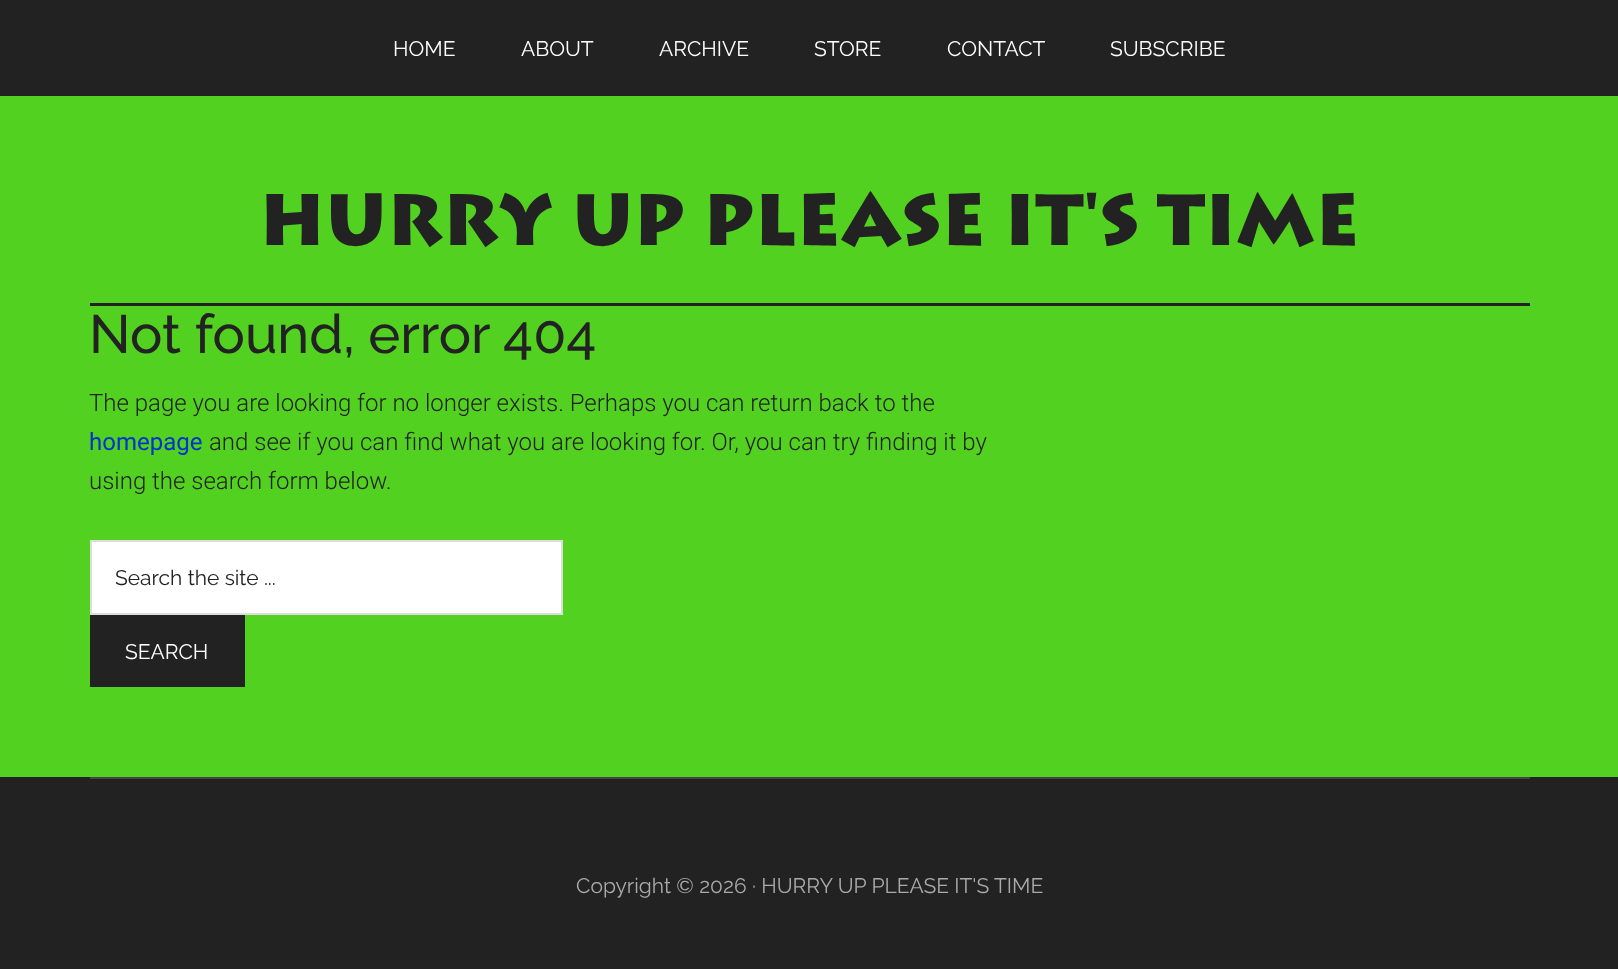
<svg xmlns="http://www.w3.org/2000/svg" width="1618" height="969" viewBox="0 0 1618 969">
  <rect width="100%" height="100%" fill="#53d121"/>
  <rect x="0" y="0" width="1618" height="96" fill="#222222"/>
  <text x="393" y="56" font-family="Raleway" font-size="21" fill="#ffffff">HOME</text>
  <text x="521" y="56" font-family="Raleway" font-size="21" fill="#ffffff">ABOUT</text>
  <text x="659" y="56" font-family="Raleway" font-size="21" fill="#ffffff">ARCHIVE</text>
  <text x="814" y="56" font-family="Raleway" font-size="21" fill="#ffffff">STORE</text>
  <text x="947" y="56" font-family="Raleway" font-size="21" fill="#ffffff">CONTACT</text>
  <text x="1110" y="56" font-family="Raleway" font-size="21" fill="#ffffff">SUBSCRIBE</text>
  <rect x="90" y="303" width="1440" height="3" fill="#222222"/>
  <text x="259" y="245" font-family="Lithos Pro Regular" font-size="72" font-weight="900" fill="#222222">HURRY UP PLEASE IT'S TIME</text>
  <text x="89" y="353" font-family="Raleway" font-size="54" font-weight="500" fill="#222222">Not found, error 404</text>
  <text x="89" y="411" font-family="Roboto" font-size="24" font-weight="300" fill="#222222">The page you are looking for no longer exists. Perhaps you can return back to the</text>
  <text x="89" y="450" font-family="Roboto" font-size="24" fill="#0033cc">homepage</text>
  <text x="209" y="450" font-family="Roboto" font-size="24" font-weight="300" fill="#222222">and see if you can find what you are looking for. Or, you can try finding it by</text>
  <text x="89" y="489" font-family="Roboto" font-size="24" font-weight="300" fill="#222222">using the search form below.</text>
  <rect x="91" y="541" width="471" height="73" fill="#ffffff" stroke="#dddddd" stroke-width="2"/>
  <text x="115" y="585" font-family="Raleway" font-size="21" fill="#222222">Search the site ...</text>
  <rect x="90" y="615" width="155" height="72" fill="#222222"/>
  <text x="125" y="659" font-family="Raleway" font-size="21" fill="#ffffff">SEARCH</text>
  <rect x="0" y="777" width="1618" height="192" fill="#222222"/>
  <rect x="90" y="777" width="1440" height="2" fill="#444444"/>
  <text x="576" y="893" font-family="Raleway" font-size="21" fill="#aaaaaa">Copyright © 2026 · HURRY UP PLEASE IT'S TIME</text>
</svg>
